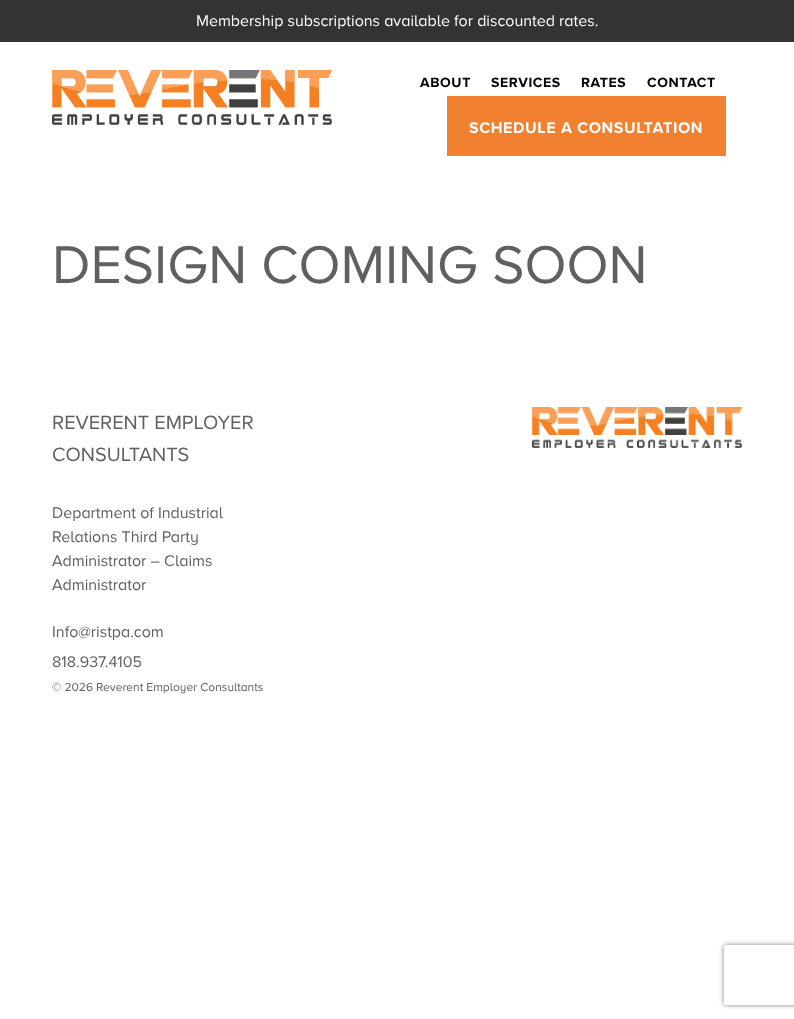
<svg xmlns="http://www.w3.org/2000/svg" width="794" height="1019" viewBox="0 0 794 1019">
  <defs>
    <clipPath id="clip1"><path d="M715 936H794V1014H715ZM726 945H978C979 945 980 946 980 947V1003C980 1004 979 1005 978 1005H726C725 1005 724 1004 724 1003V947C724 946 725 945 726 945Z" clip-rule="evenodd"/></clipPath>
    <filter id="blur1" x="-50%" y="-200%" width="200%" height="500%"><feGaussianBlur stdDeviation="2.5"/></filter>
  </defs>
  <rect width="100%" height="100%" fill="#ffffff"/>
  <rect x="0" y="0" width="794" height="42" fill="#333333"/>
  <text x="196" y="26" font-family="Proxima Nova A" font-size="16" fill="#ffffff">Membership subscriptions available for discounted rates.</text>
  <image x="52" y="70" width="280" height="55" href="img1.png"/>
  <text x="420" y="87" font-family="Proxima Nova A" font-size="14" font-weight="bold" letter-spacing="0.6" fill="#000000">ABOUT</text>
  <text x="491" y="87" font-family="Proxima Nova A" font-size="14" font-weight="bold" letter-spacing="0.6" fill="#000000">SERVICES</text>
  <text x="581" y="87" font-family="Proxima Nova A" font-size="14" font-weight="bold" letter-spacing="0.6" fill="#000000">RATES</text>
  <text x="647" y="87" font-family="Proxima Nova A" font-size="14" font-weight="bold" letter-spacing="0.6" fill="#000000">CONTACT</text>
  <rect x="447" y="96" width="279" height="60" fill="#f28031"/>
  <text x="469" y="133" font-family="Proxima Nova A" font-size="16" font-weight="bold" letter-spacing="0.6" fill="#ffffff">SCHEDULE A CONSULTATION</text>
  <text x="52" y="283" font-family="Proxima Nova A" font-size="55" fill="#5f6062">DESIGN COMING SOON</text>
  <text x="52" y="429" font-family="Proxima Nova A" font-size="20" fill="#5f6062">REVERENT EMPLOYER</text>
  <text x="52" y="461" font-family="Proxima Nova A" font-size="20" fill="#5f6062">CONSULTANTS</text>
  <text x="52" y="518" font-family="Proxima Nova A" font-size="16" fill="#5f6062">Department of Industrial</text>
  <text x="52" y="542" font-family="Proxima Nova A" font-size="16" fill="#5f6062">Relations Third Party</text>
  <text x="52" y="566" font-family="Proxima Nova A" font-size="16" fill="#5f6062">Administrator – Claims</text>
  <text x="52" y="590" font-family="Proxima Nova A" font-size="16" fill="#5f6062">Administrator</text>
  <text x="52" y="637" font-family="Proxima Nova A" font-size="16" fill="#5f6062">Info@ristpa.com</text>
  <text x="52" y="667" font-family="Proxima Nova A" font-size="16" fill="#5f6062">818.937.4105</text>
  <image x="532" y="407" width="210" height="41" href="img2.png"/>
  <text x="52" y="691" font-family="Proxima Nova A" font-size="12" fill="#5f6062">© 2026 Reverent Employer Consultants</text>
  <g clip-path="url(#clip1)">
    <rect x="724" y="945" width="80" height="60" rx="2" fill="#808080" filter="url(#blur1)"/>
  </g>
</svg>
